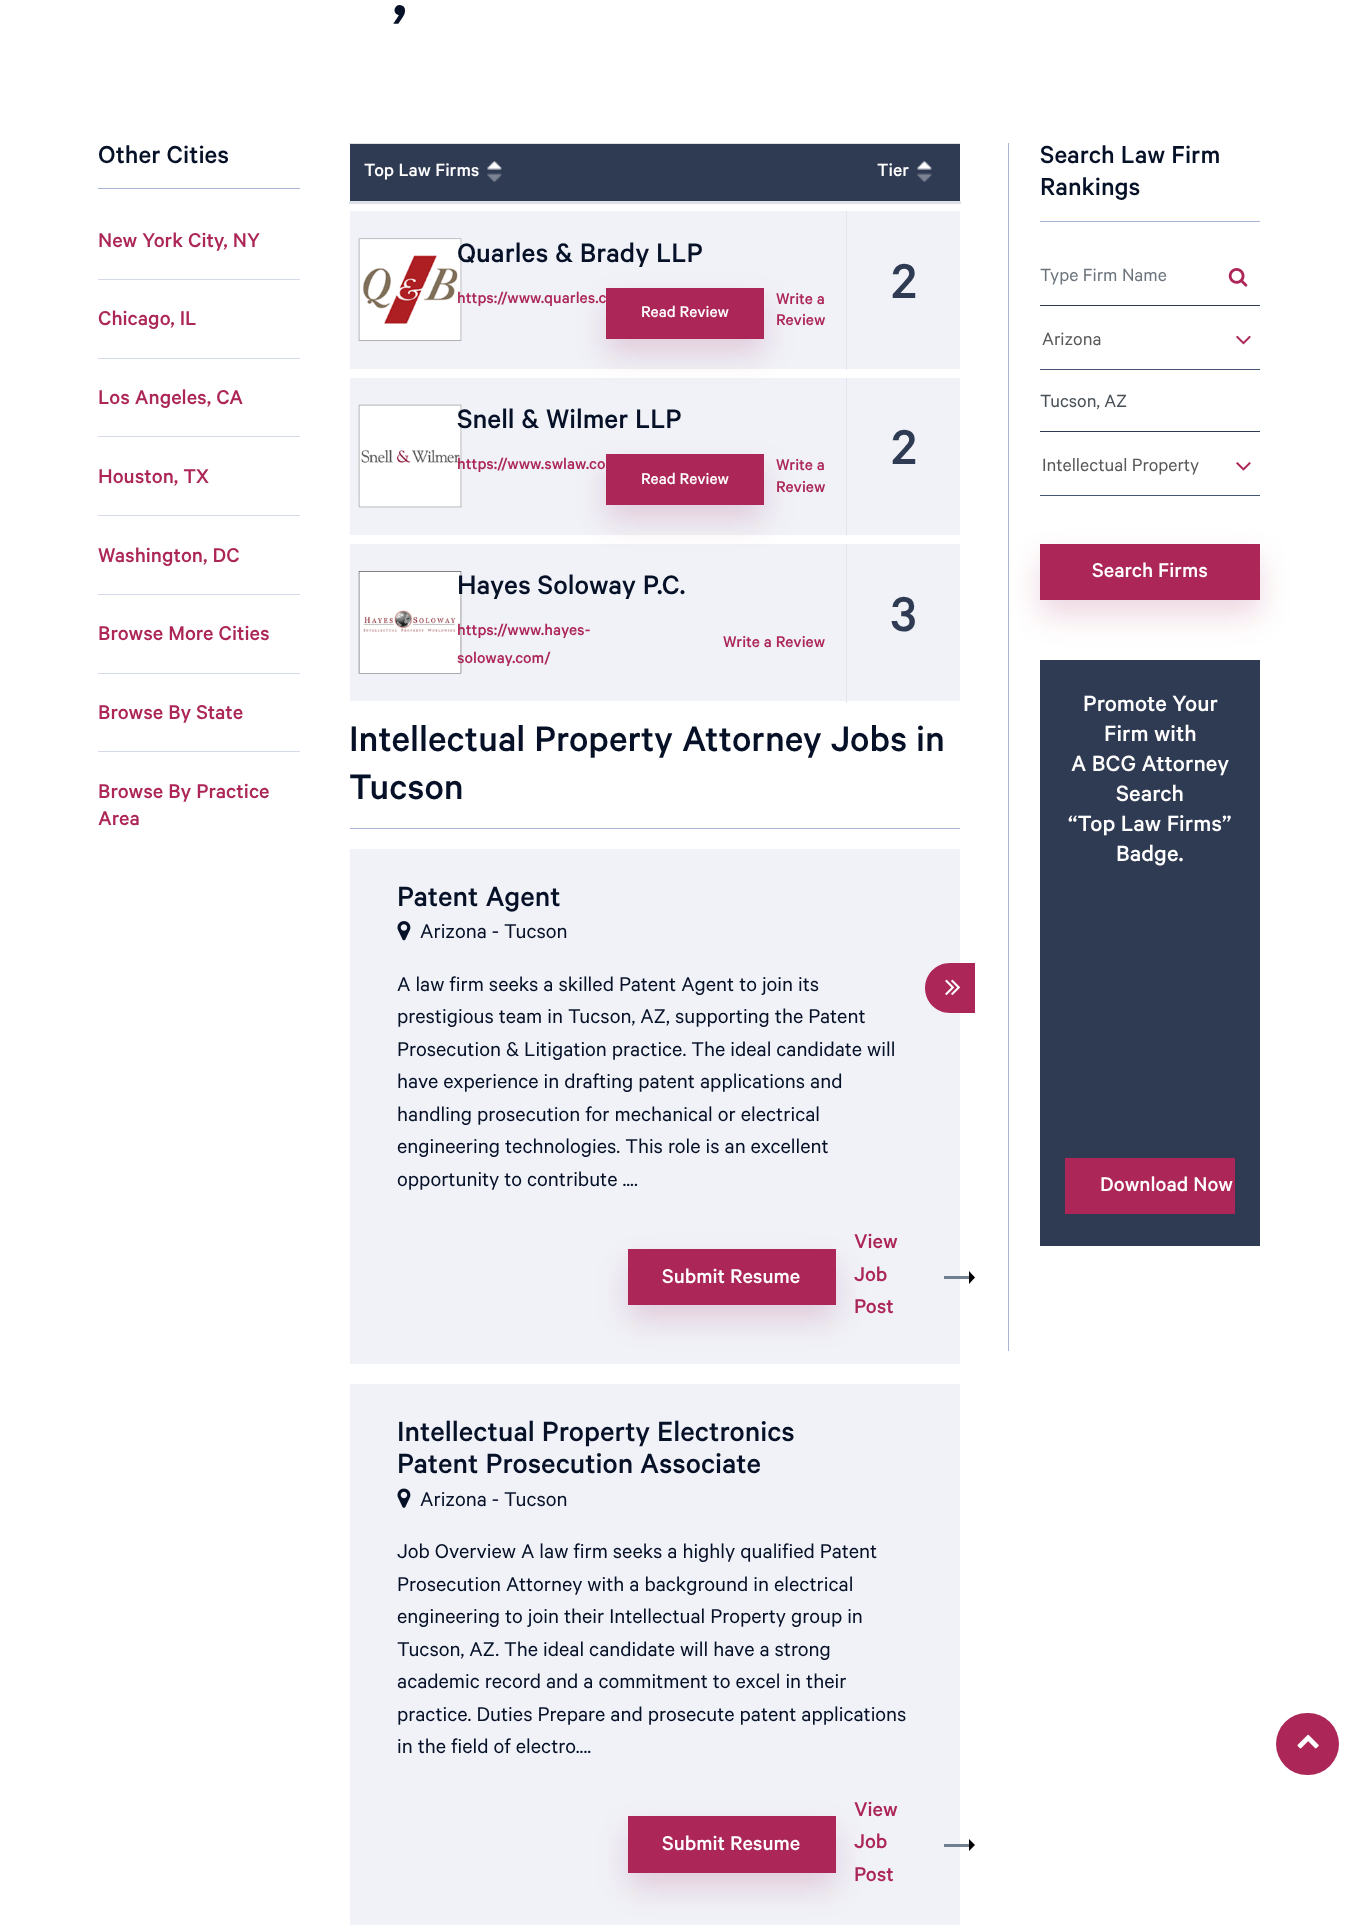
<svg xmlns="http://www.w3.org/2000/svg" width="1357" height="1925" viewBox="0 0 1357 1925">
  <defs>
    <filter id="blur1" x="-50%" y="-200%" width="200%" height="500%"><feGaussianBlur stdDeviation="15"/></filter>
  </defs>
  <rect width="100%" height="100%" fill="#ffffff"/>
  <text x="392" y="15" font-family="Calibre" font-size="78" font-weight="500" fill="#061128">,</text>
  <rect x="98" y="188" width="202" height="1" fill="#a8b4d5"/>
  <text x="98" y="163" font-family="Calibre" font-size="27.5" font-weight="500" fill="#061128">Other Cities</text>
  <rect x="98" y="279" width="202" height="1" fill="#d4daea"/>
  <text x="98" y="247" font-family="Calibre" font-size="22.5" font-weight="500" fill="#ac2757">New York City, NY</text>
  <rect x="98" y="358" width="202" height="1" fill="#d4daea"/>
  <text x="98" y="325" font-family="Calibre" font-size="22.5" font-weight="500" fill="#ac2757">Chicago, IL</text>
  <rect x="98" y="436" width="202" height="1" fill="#d4daea"/>
  <text x="98" y="404" font-family="Calibre" font-size="22.5" font-weight="500" fill="#ac2757">Los Angeles, CA</text>
  <rect x="98" y="515" width="202" height="1" fill="#d4daea"/>
  <text x="98" y="483" font-family="Calibre" font-size="22.5" font-weight="500" fill="#ac2757">Houston, TX</text>
  <rect x="98" y="594" width="202" height="1" fill="#d4daea"/>
  <text x="98" y="562" font-family="Calibre" font-size="22.5" font-weight="500" fill="#ac2757">Washington, DC</text>
  <rect x="98" y="673" width="202" height="1" fill="#d4daea"/>
  <text x="98" y="640" font-family="Calibre" font-size="22.5" font-weight="500" fill="#ac2757">Browse More Cities</text>
  <rect x="98" y="751" width="202" height="1" fill="#d4daea"/>
  <text x="98" y="719" font-family="Calibre" font-size="22.5" font-weight="500" fill="#ac2757">Browse By State</text>
  <text x="98" y="798" font-family="Calibre" font-size="22.5" font-weight="500" fill="#ac2757">Browse By Practice</text>
  <text x="98" y="825" font-family="Calibre" font-size="22.5" font-weight="500" fill="#ac2757">Area</text>
  <rect x="350" y="144" width="610" height="57" fill="#2f3a53"/>
  <text x="364" y="176" font-family="Calibre" font-size="20" font-weight="500" fill="#ffffff">Top Law Firms</text>
  <image x="487" y="161" width="15" height="22" href="img1.png"/>
  <rect x="349" y="143" width="611" height="1" fill="#dee2e6"/>
  <rect x="349" y="201" width="612" height="3" fill="#dee2e6"/>
  <text x="877" y="176" font-family="Calibre" font-size="20" font-weight="500" fill="#ffffff">Tier</text>
  <image x="917" y="161" width="15" height="22" href="img1.png"/>
  <rect x="350" y="211" width="610" height="158" fill="#f0f2f8"/>
  <image x="358" y="238" width="104" height="103" href="img2.png"/>
  <text x="457" y="262" font-family="Calibre" font-size="30" font-weight="500" fill="#061128">Quarles &amp; Brady LLP</text>
  <text x="457" y="303" font-family="Calibre" font-size="17.5" font-weight="500" fill="#ac2757">https://www.quarles.c</text>
  <rect x="350" y="378" width="610" height="157" fill="#f0f2f8"/>
  <rect x="606" y="303" width="158" height="51" rx="1" fill="#901642" fill-opacity="0.16" filter="url(#blur1)"/>
  <rect x="607.5" y="289.5" width="155" height="48" fill="#ac2757" stroke="#ac2757" stroke-width="3"/>
  <text x="641" y="317" font-family="Calibre" font-size="17.5" font-weight="500" fill="#ffffff">Read Review</text>
  <text x="776" y="304" font-family="Calibre" font-size="17.5" font-weight="500" fill="#ac2757">Write a</text>
  <text x="776" y="325" font-family="Calibre" font-size="17.5" font-weight="500" fill="#ac2757">Review</text>
  <rect x="846" y="211" width="1" height="159" fill="#e1e5f0"/>
  <text x="891" y="298" font-family="Calibre" font-size="55" font-weight="500" fill="#2f3a53">2</text>
  <image x="358" y="404" width="104" height="104" href="img3.png"/>
  <text x="457" y="428" font-family="Calibre" font-size="30" font-weight="500" fill="#061128">Snell &amp; Wilmer LLP</text>
  <text x="457" y="469" font-family="Calibre" font-size="17.5" font-weight="500" fill="#ac2757">https://www.swlaw.co</text>
  <rect x="350" y="544" width="610" height="157" fill="#f0f2f8"/>
  <rect x="606" y="469" width="158" height="51" rx="1" fill="#901642" fill-opacity="0.16" filter="url(#blur1)"/>
  <rect x="607.5" y="455.5" width="155" height="48" fill="#ac2757" stroke="#ac2757" stroke-width="3"/>
  <text x="641" y="484" font-family="Calibre" font-size="17.5" font-weight="500" fill="#ffffff">Read Review</text>
  <text x="776" y="470" font-family="Calibre" font-size="17.5" font-weight="500" fill="#ac2757">Write a</text>
  <text x="776" y="492" font-family="Calibre" font-size="17.5" font-weight="500" fill="#ac2757">Review</text>
  <rect x="846" y="378" width="1" height="158" fill="#e1e5f0"/>
  <text x="891" y="464" font-family="Calibre" font-size="55" font-weight="500" fill="#2f3a53">2</text>
  <image x="358" y="571" width="104" height="103" href="img4.png"/>
  <text x="457" y="594" font-family="Calibre" font-size="30" font-weight="500" fill="#061128">Hayes Soloway P.C.</text>
  <text x="457" y="635" font-family="Calibre" font-size="17.5" font-weight="500" fill="#ac2757">https://www.hayes-</text>
  <text x="457" y="663" font-family="Calibre" font-size="17.5" font-weight="500" fill="#ac2757">soloway.com/</text>
  <text x="723" y="647" font-family="Calibre" font-size="17.5" font-weight="500" fill="#ac2757">Write a Review</text>
  <rect x="846" y="544" width="1" height="159" fill="#e1e5f0"/>
  <text x="891" y="631" font-family="Calibre" font-size="55" font-weight="500" fill="#2f3a53">3</text>
  <rect x="350" y="828" width="610" height="1" fill="#a8b4d5"/>
  <text x="349" y="751" font-family="Calibre" font-size="40" font-weight="500" fill="#061128">Intellectual Property Attorney Jobs in</text>
  <text x="349" y="799" font-family="Calibre" font-size="40" font-weight="500" fill="#061128">Tucson</text>
  <rect x="350" y="849" width="610" height="515" fill="#f0f2f8"/>
  <text x="397" y="906" font-family="Calibre" font-size="31.25" font-weight="500" fill="#061128">Patent Agent</text>
  <image x="397" y="921" width="14" height="20" href="img5.png"/>
  <text x="420" y="938" font-family="Calibre" font-size="22.5" fill="#061128">Arizona - Tucson</text>
  <text x="397" y="991" font-family="Calibre" font-size="22.5" fill="#061128">A law firm seeks a skilled Patent Agent to join its</text>
  <text x="397" y="1023" font-family="Calibre" font-size="22.5" fill="#061128">prestigious team in Tucson, AZ, supporting the Patent</text>
  <text x="397" y="1056" font-family="Calibre" font-size="22.5" fill="#061128">Prosecution &amp; Litigation practice. The ideal candidate will</text>
  <text x="397" y="1088" font-family="Calibre" font-size="22.5" fill="#061128">have experience in drafting patent applications and</text>
  <text x="397" y="1121" font-family="Calibre" font-size="22.5" fill="#061128">handling prosecution for mechanical or electrical</text>
  <text x="397" y="1153" font-family="Calibre" font-size="22.5" fill="#061128">engineering technologies. This role is an excellent</text>
  <text x="397" y="1186" font-family="Calibre" font-size="22.5" fill="#061128">opportunity to contribute ....</text>
  <rect x="628" y="1264" width="208" height="56" rx="1" fill="#901642" fill-opacity="0.16" filter="url(#blur1)"/>
  <rect x="629.5" y="1250.5" width="205" height="53" fill="#ac2757" stroke="#ac2757" stroke-width="3"/>
  <text x="662" y="1283" font-family="Calibre" font-size="22.5" font-weight="500" fill="#ffffff">Submit Resume</text>
  <text x="854" y="1248" font-family="Calibre" font-size="22.5" font-weight="500" fill="#ac2757">View</text>
  <text x="854" y="1281" font-family="Calibre" font-size="22.5" font-weight="500" fill="#ac2757">Job</text>
  <rect x="944" y="1276" width="27" height="3" fill="#708090"/>
  <path d="M969 1284V1271L975 1277.5Z" fill="#000000"/>
  <text x="854" y="1313" font-family="Calibre" font-size="22.5" font-weight="500" fill="#ac2757">Post</text>
  <rect x="350" y="1384" width="610" height="541" fill="#f0f2f8"/>
  <text x="397" y="1441" font-family="Calibre" font-size="31.25" font-weight="500" fill="#061128">Intellectual Property Electronics</text>
  <text x="397" y="1473" font-family="Calibre" font-size="31.25" font-weight="500" fill="#061128">Patent Prosecution Associate</text>
  <image x="397" y="1488" width="14" height="20" href="img6.png"/>
  <text x="420" y="1506" font-family="Calibre" font-size="22.5" fill="#061128">Arizona - Tucson</text>
  <text x="397" y="1558" font-family="Calibre" font-size="22.5" fill="#061128">Job Overview A law firm seeks a highly qualified Patent</text>
  <text x="397" y="1591" font-family="Calibre" font-size="22.5" fill="#061128">Prosecution Attorney with a background in electrical</text>
  <text x="397" y="1623" font-family="Calibre" font-size="22.5" fill="#061128">engineering to join their Intellectual Property group in</text>
  <text x="397" y="1656" font-family="Calibre" font-size="22.5" fill="#061128">Tucson, AZ. The ideal candidate will have a strong</text>
  <text x="397" y="1688" font-family="Calibre" font-size="22.5" fill="#061128">academic record and a commitment to excel in their</text>
  <text x="397" y="1721" font-family="Calibre" font-size="22.5" fill="#061128">practice. Duties Prepare and prosecute patent applications</text>
  <text x="397" y="1753" font-family="Calibre" font-size="22.5" fill="#061128">in the field of electro....</text>
  <rect x="628" y="1831" width="208" height="57" rx="1" fill="#901642" fill-opacity="0.16" filter="url(#blur1)"/>
  <rect x="629.5" y="1817.5" width="205" height="54" fill="#ac2757" stroke="#ac2757" stroke-width="3"/>
  <text x="662" y="1850" font-family="Calibre" font-size="22.5" font-weight="500" fill="#ffffff">Submit Resume</text>
  <text x="854" y="1816" font-family="Calibre" font-size="22.5" font-weight="500" fill="#ac2757">View</text>
  <text x="854" y="1848" font-family="Calibre" font-size="22.5" font-weight="500" fill="#ac2757">Job</text>
  <rect x="944" y="1844" width="27" height="3" fill="#708090"/>
  <path d="M969 1851V1839L975 1845Z" fill="#000000"/>
  <text x="854" y="1881" font-family="Calibre" font-size="22.5" font-weight="500" fill="#ac2757">Post</text>
  <rect x="1008" y="143" width="1" height="1208" fill="#a8b4d5"/>
  <rect x="1040" y="221" width="220" height="1" fill="#a8b4d5"/>
  <text x="1040" y="163" font-family="Calibre" font-size="27.5" font-weight="500" fill="#061128">Search Law Firm</text>
  <text x="1040" y="195" font-family="Calibre" font-size="27.5" font-weight="500" fill="#061128">Rankings</text>
  <rect x="1040" y="305" width="220" height="1" fill="#2f3a53"/>
  <image x="1228" y="268" width="20" height="19" href="img7.png"/>
  <text x="1040" y="281" font-family="Calibre" font-size="20" fill="#6c757d">Type Firm Name</text>
  <rect x="1040" y="369" width="220" height="1" fill="#465576"/>
  <text x="1042" y="345" font-family="Calibre" font-size="20" fill="#595959">Arizona</text>
  <image x="1236" y="335" width="15" height="10" href="img8.png"/>
  <rect x="1040" y="431" width="220" height="1" fill="#2f3a53"/>
  <text x="1040" y="407" font-family="Calibre" font-size="20" fill="#495057">Tucson, AZ</text>
  <rect x="1040" y="495" width="220" height="1" fill="#465576"/>
  <text x="1042" y="471" font-family="Calibre" font-size="20" fill="#595959">Intellectual Property</text>
  <image x="1236" y="462" width="15" height="9" href="img9.png"/>
  <rect x="1040" y="559" width="220" height="56" rx="1" fill="#901642" fill-opacity="0.16" filter="url(#blur1)"/>
  <rect x="1041.5" y="545.5" width="217" height="53" fill="#ac2757" stroke="#ac2757" stroke-width="3"/>
  <text x="1092" y="577" font-family="Calibre" font-size="22.5" font-weight="500" fill="#ffffff">Search Firms</text>
  <rect x="1040" y="660" width="220" height="586" fill="#2f3a53"/>
  <text x="1083" y="711" font-family="Calibre" font-size="25" font-weight="500" fill="#ffffff">Promote Your</text>
  <text x="1104" y="741" font-family="Calibre" font-size="25" font-weight="500" fill="#ffffff">Firm with</text>
  <text x="1071" y="771" font-family="Calibre" font-size="25" font-weight="500" fill="#ffffff">A BCG Attorney</text>
  <text x="1116" y="801" font-family="Calibre" font-size="25" font-weight="500" fill="#ffffff">Search</text>
  <text x="1068" y="831" font-family="Calibre" font-size="25" font-weight="500" fill="#ffffff">“Top Law Firms”</text>
  <text x="1116" y="861" font-family="Calibre" font-size="25" font-weight="500" fill="#ffffff">Badge.</text>
  <rect x="1066.5" y="1159.5" width="167" height="53" fill="#ac2757" stroke="#ac2757" stroke-width="3"/>
  <text x="1100" y="1191" font-family="Calibre" font-size="22.5" font-weight="500" fill="#ffffff">Download Now</text>
  <path d="M950 963H975V1013H950C936 1013 925 1002 925 988C925 974 936 963 950 963Z" fill="#ac2757"/>
  <image x="945" y="979" width="15" height="16" href="img10.png"/>
  <rect x="1276" y="1713" width="63" height="62" rx="31" fill="#ac2757"/>
  <image x="1297" y="1734" width="22" height="15" href="img11.png"/>
</svg>
